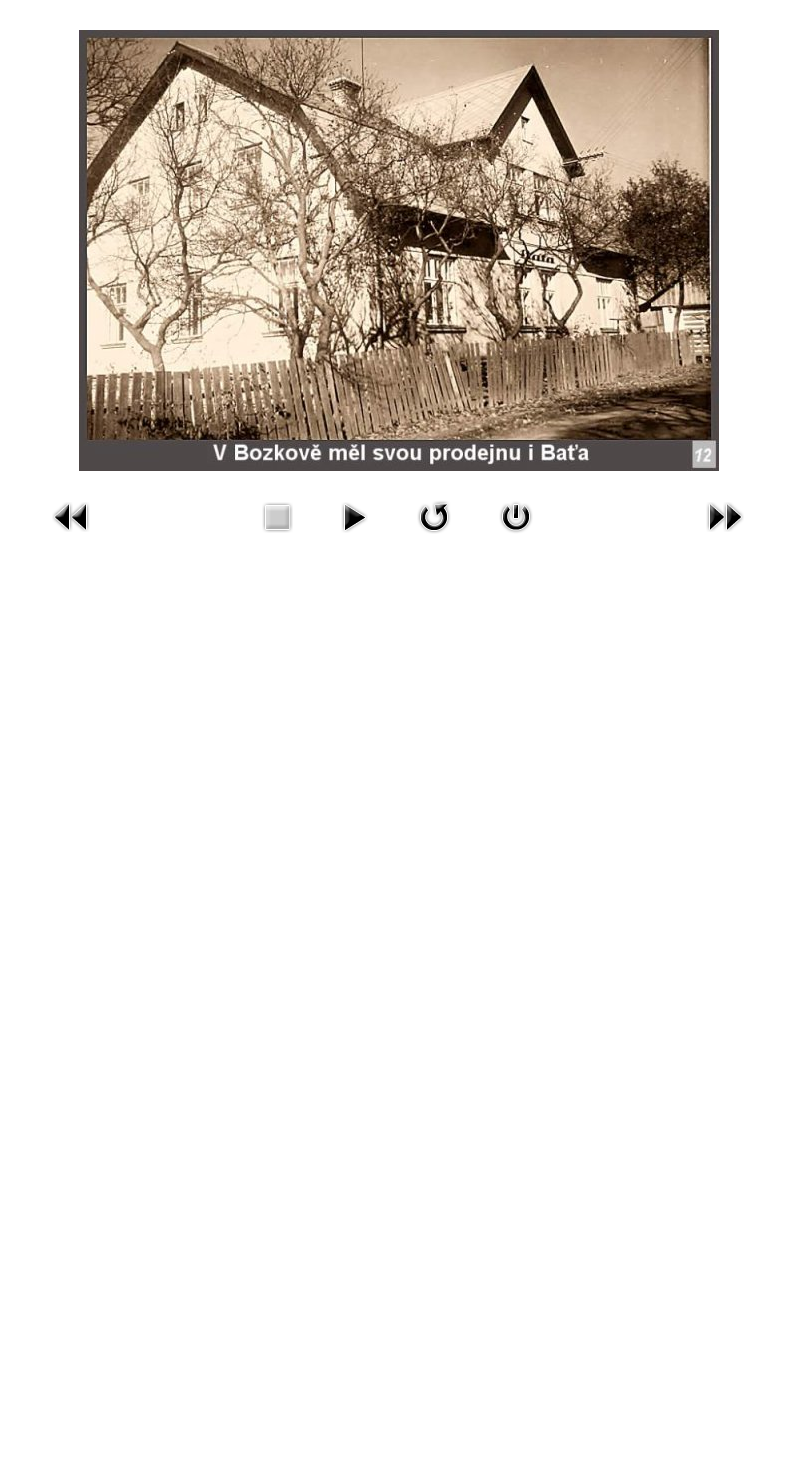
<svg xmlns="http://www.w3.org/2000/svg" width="797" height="1463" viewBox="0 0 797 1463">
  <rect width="100%" height="100%" fill="#ffffff"/>
  <image x="79" y="30" width="640" height="441" href="img1.png"/>
  <image x="52" y="502" width="38" height="30" href="img2.png"/>
  <image x="262" y="502" width="31" height="31" href="img3.png"/>
  <image x="341" y="502" width="27" height="31" href="img4.png"/>
  <image x="417" y="500" width="34" height="34" href="img5.png"/>
  <image x="499" y="501" width="34" height="33" href="img6.png"/>
  <image x="706" y="502" width="38" height="30" href="img7.png"/>
</svg>
